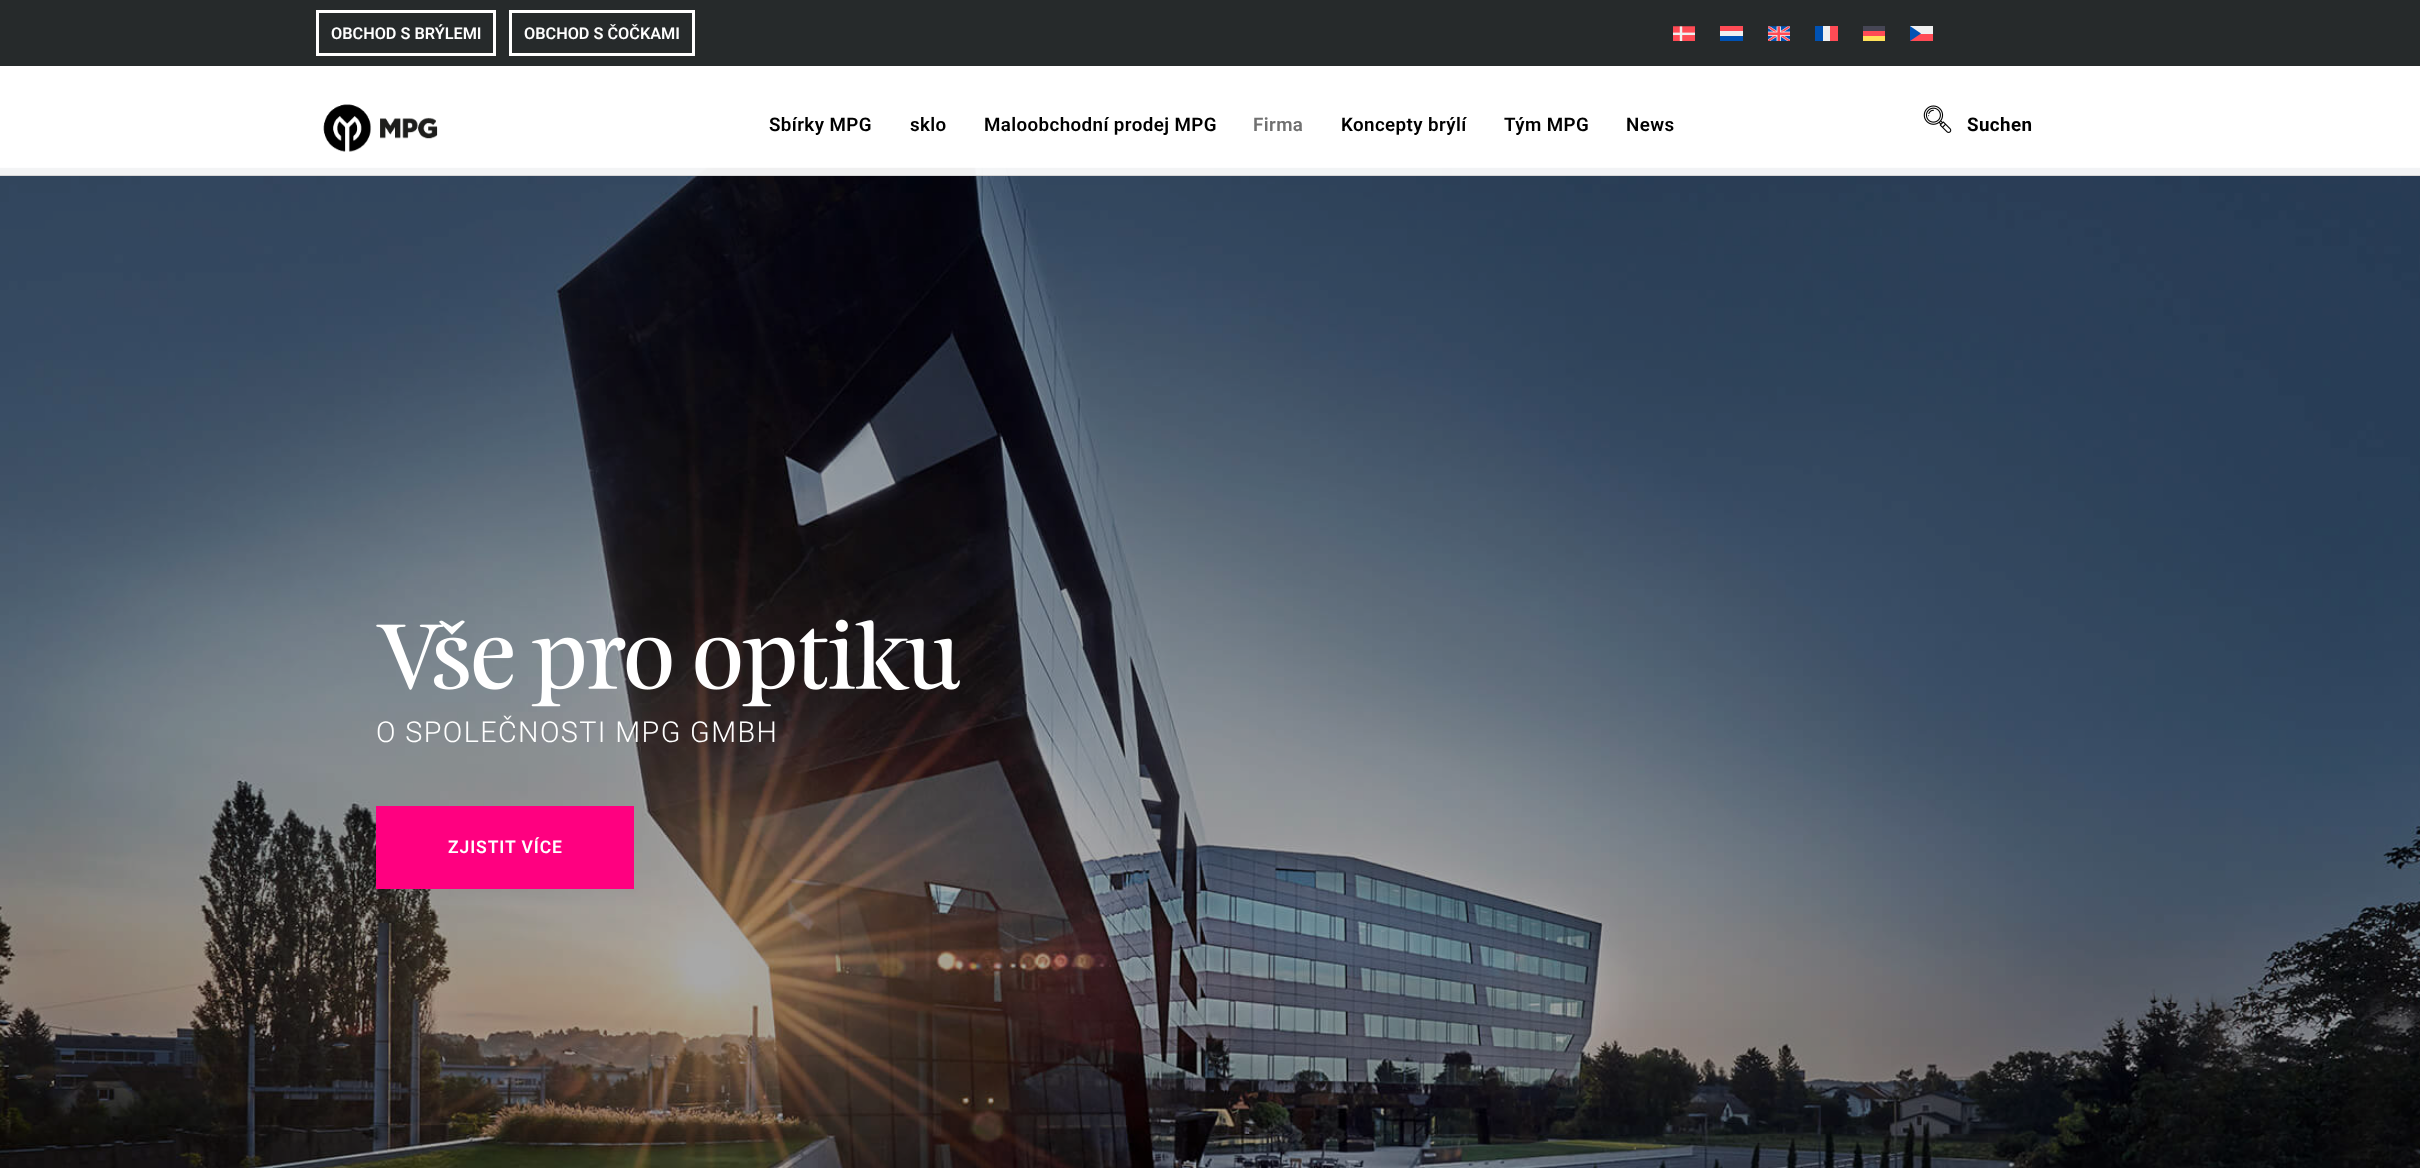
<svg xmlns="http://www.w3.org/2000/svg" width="2420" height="1168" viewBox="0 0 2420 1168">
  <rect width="100%" height="100%" fill="#ffffff"/>
  <rect x="0" y="0" width="2420" height="66" fill="#262a2b"/>
  <rect x="317.5" y="11.5" width="177" height="43" fill="none" stroke="#ffffff" stroke-width="3"/>
  <text x="331" y="39" font-family="Roboto" font-size="16.25" font-weight="600" fill="#ffffff">OBCHOD S BRÝLEMI</text>
  <rect x="510.5" y="11.5" width="183" height="43" fill="none" stroke="#ffffff" stroke-width="3"/>
  <text x="524" y="39" font-family="Roboto" font-size="16.25" font-weight="600" fill="#ffffff">OBCHOD S ČOČKAMI</text>
  <image x="1673" y="26" width="22" height="15" href="img1.png"/>
  <rect x="1720" y="26" width="23" height="5" fill="#ff4b55"/>
  <rect x="1720" y="31" width="23" height="5" fill="#f0f0f0"/>
  <rect x="1720" y="36" width="23" height="5" fill="#0052b4"/>
  <image x="1768" y="26" width="22" height="15" href="img2.png"/>
  <rect x="1815" y="26" width="8" height="15" fill="#0052b4"/>
  <rect x="1823" y="26" width="7" height="15" fill="#f0f0f0"/>
  <rect x="1830" y="26" width="8" height="15" fill="#ff4b55"/>
  <rect x="1863" y="26" width="22" height="5" fill="#464655"/>
  <rect x="1863" y="31" width="22" height="5" fill="#ff4b55"/>
  <rect x="1863" y="36" width="22" height="5" fill="#ffe15a"/>
  <rect x="1910" y="26" width="23" height="8" fill="#f0f0f0"/>
  <rect x="1910" y="34" width="23" height="7" fill="#ff4b55"/>
  <path d="M1921 33.5L1910 26V41Z" fill="#0052b4"/>
  <image x="0" y="167" width="2420" height="1001" href="img5.png"/>
  <rect x="0" y="167" width="2420" height="8" fill="#ffffff" fill-opacity="0.94"/>
  <rect x="0" y="175" width="2420" height="1" fill="#d8d8d8"/>
  <image x="323" y="104" width="115" height="48" href="img3.png"/>
  <text x="769" y="131" font-family="Roboto" font-size="18.75" font-weight="600" letter-spacing="0.4" fill="#000000">Sbírky MPG</text>
  <text x="910" y="131" font-family="Roboto" font-size="18.75" font-weight="600" letter-spacing="0.4" fill="#000000">sklo</text>
  <text x="984" y="131" font-family="Roboto" font-size="18.75" font-weight="600" letter-spacing="0.4" fill="#000000">Maloobchodní prodej MPG</text>
  <text x="1253" y="131" font-family="Roboto" font-size="18.75" font-weight="600" letter-spacing="0.4" fill="#707070">Firma</text>
  <text x="1341" y="131" font-family="Roboto" font-size="18.75" font-weight="600" letter-spacing="0.4" fill="#000000">Koncepty brýlí</text>
  <text x="1504" y="131" font-family="Roboto" font-size="18.75" font-weight="600" letter-spacing="0.4" fill="#000000">Tým MPG</text>
  <text x="1626" y="131" font-family="Roboto" font-size="18.75" font-weight="600" letter-spacing="0.4" fill="#000000">News</text>
  <image x="1923" y="105" width="29" height="28" href="img4.png"/>
  <text x="1967" y="131" font-family="Roboto" font-size="18.75" font-weight="bold" letter-spacing="0.4" fill="#000000">Suchen</text>
  <image x="376" y="619" width="584" height="88" href="img6.png"/>
  <text x="376" y="742" font-family="Roboto" font-size="28.75" font-weight="300" letter-spacing="1.4" fill="#ffffff">O SPOLEČNOSTI MPG GMBH</text>
  <rect x="376" y="806" width="258" height="83" fill="#ff0080"/>
  <text x="448" y="853" font-family="Roboto" font-size="17.5" font-weight="600" letter-spacing="0.9" fill="#ffffff">ZJISTIT VÍCE</text>
</svg>
